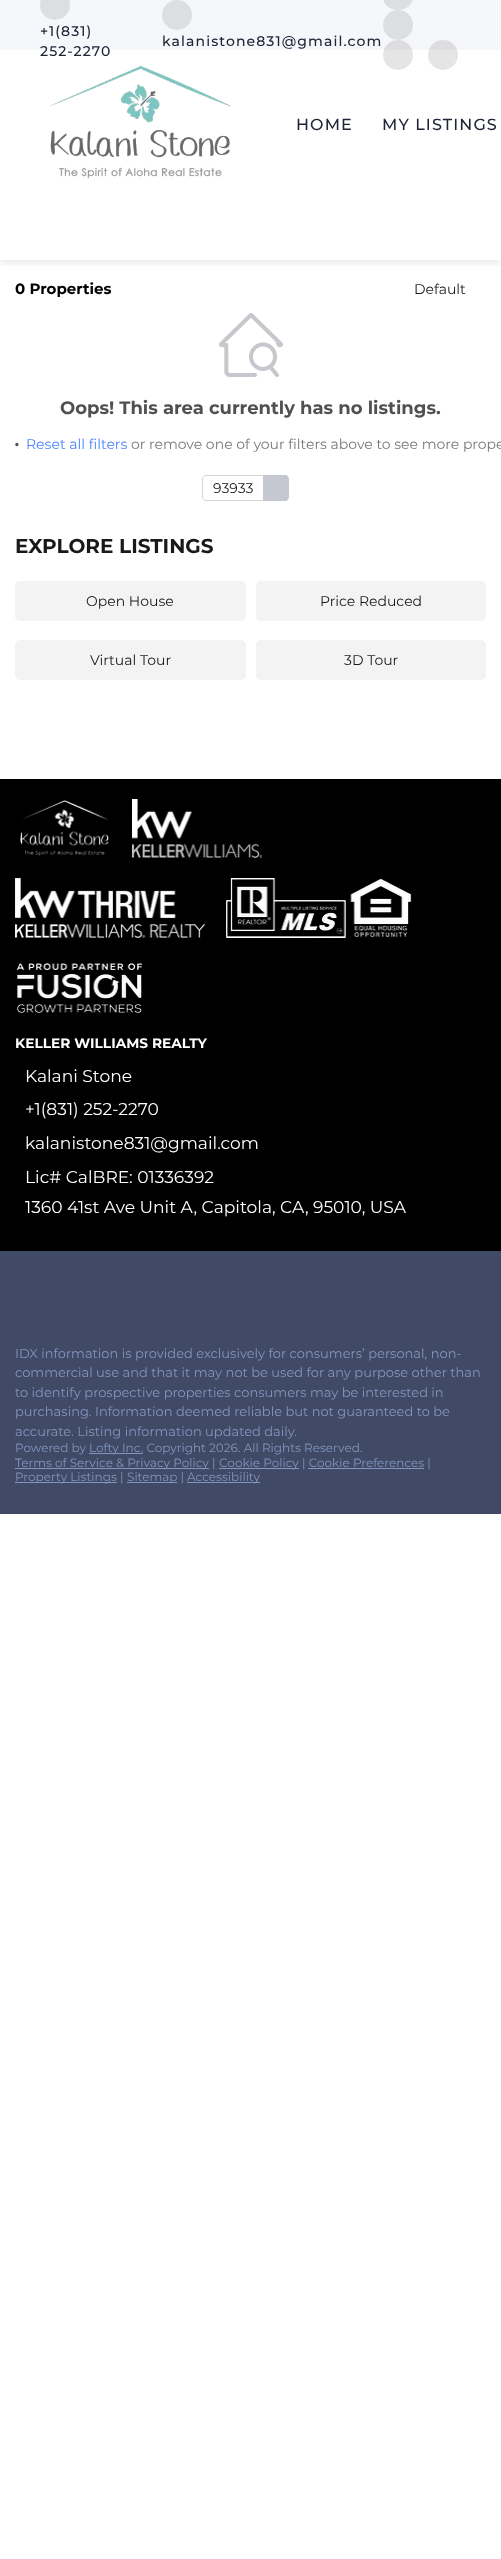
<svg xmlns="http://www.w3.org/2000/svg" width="501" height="2559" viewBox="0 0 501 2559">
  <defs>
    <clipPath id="clip1"><rect x="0" y="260" width="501" height="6"/></clipPath>
    <filter id="blur1" x="-50%" y="-200%" width="200%" height="500%"><feGaussianBlur stdDeviation="5"/></filter>
  </defs>
  <rect width="100%" height="100%" fill="#ffffff"/>
  <g clip-path="url(#clip1)">
    <rect x="0" y="202" width="501" height="60" fill="#000a1e" fill-opacity="0.1" filter="url(#blur1)"/>
  </g>
  <rect x="0" y="196" width="501" height="4" fill="#ffffff"/>
  <rect x="0" y="0" width="501" height="50" fill="#f6f7fb"/>
  <circle cx="55" cy="5" r="15" fill="#dddee2"/>
  <text x="40" y="36" font-family="Montserrat" font-size="14" font-weight="500" letter-spacing="1.1" fill="#202437">+1(831)</text>
  <text x="40" y="56" font-family="Montserrat" font-size="14" font-weight="500" letter-spacing="1.1" fill="#202437">252-2270</text>
  <circle cx="177" cy="15" r="15" fill="#dddee2"/>
  <text x="162" y="46" font-family="Montserrat" font-size="14" font-weight="500" letter-spacing="1.1" fill="#202437">kalanistone831@gmail.com</text>
  <rect x="383" y="-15" width="30" height="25" rx="15" fill="#dddee2"/>
  <circle cx="398" cy="25" r="15" fill="#dddee2"/>
  <circle cx="398" cy="55" r="15" fill="#000000" fill-opacity="0.1"/>
  <circle cx="443" cy="55" r="15" fill="#000000" fill-opacity="0.1"/>
  <image x="50" y="65" width="181" height="114" href="img1.png"/>
  <text x="296" y="130" font-family="Montserrat" font-size="16" font-weight="500" letter-spacing="1.1" fill="#202437">HOME</text>
  <text x="382" y="130" font-family="Montserrat" font-size="16" font-weight="500" letter-spacing="1.1" fill="#202437">MY LISTINGS</text>
  <text x="15" y="294" font-family="Montserrat" font-size="15" font-weight="bold" fill="#000000">0 Properties</text>
  <text x="414" y="294" font-family="Montserrat" font-size="14" fill="#191919">Default</text>
  <image x="219" y="313" width="64" height="64" href="img2.png"/>
  <text x="60" y="414" font-family="Montserrat" font-size="18" font-weight="bold" fill="#505050">Oops! This area currently has no listings.</text>
  <text x="14" y="446" font-family="'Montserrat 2'" font-size="24" font-weight="bold" fill="#505050">.</text>
  <text x="26" y="449" font-family="Montserrat" font-size="14" fill="#4c84ff">Reset all filters</text>
  <text x="131" y="449" font-family="Montserrat" font-size="14" fill="#787878">or remove one of your filters above to see more prope</text>
  <path d="M206 475H285C287 475 289 477 289 479V497C289 499 287 501 285 501H206C204 501 202 499 202 497V479C202 477 204 475 206 475ZM206 476H285C287 476 289 477 289 479V497C289 499 287 500 285 500H206C204 500 203 499 203 497V479C203 477 204 476 206 476Z" fill="#d5d5d5" fill-rule="evenodd"/>
  <text x="213" y="493" font-family="Montserrat" font-size="14" fill="#191919">93933</text>
  <path d="M263 475H285C287 475 289 477 289 479V497C289 499 287 501 285 501H263Z" fill="#c6c8d1"/>
  <text x="15" y="553" font-family="Montserrat" font-size="20" font-weight="bold" fill="#191919">EXPLORE LISTINGS</text>
  <rect x="15" y="581" width="231" height="40" rx="5" fill="#f3f3f3"/>
  <text x="86" y="606" font-family="Montserrat" font-size="14" fill="#191919">Open House</text>
  <rect x="256" y="581" width="230" height="40" rx="5" fill="#f3f3f3"/>
  <text x="320" y="606" font-family="Montserrat" font-size="14" fill="#191919">Price Reduced</text>
  <rect x="15" y="640" width="231" height="40" rx="5" fill="#f3f3f3"/>
  <text x="90" y="665" font-family="Montserrat" font-size="14" fill="#191919">Virtual Tour</text>
  <rect x="256" y="640" width="230" height="40" rx="5" fill="#f3f3f3"/>
  <text x="344" y="665" font-family="Montserrat" font-size="14" fill="#191919">3D Tour</text>
  <rect x="0" y="779" width="501" height="472" fill="#000000"/>
  <image x="20" y="800" width="89" height="56" href="img3.png"/>
  <image x="132" y="799" width="130" height="59" href="img4.png"/>
  <image x="15" y="878" width="190" height="60" href="img5.png"/>
  <image x="225" y="878" width="187" height="60" href="img6.png"/>
  <image x="16" y="963" width="126" height="50" href="img7.png"/>
  <text x="15" y="1048" font-family="Montserrat" font-size="13.75" font-weight="bold" fill="#ffffff">KELLER WILLIAMS REALTY</text>
  <text x="25" y="1082" font-family="Montserrat" font-size="17.1" fill="#ffffff">Kalani Stone</text>
  <text x="25" y="1115" font-family="Montserrat" font-size="17.1" fill="#ffffff">+1(831) 252-2270</text>
  <text x="25" y="1149" font-family="Montserrat" font-size="17.1" fill="#ffffff">kalanistone831@gmail.com</text>
  <text x="25" y="1183" font-family="Montserrat" font-size="17.1" fill="#ffffff">Lic# CalBRE: 01336392</text>
  <text x="25" y="1213" font-family="Montserrat" font-size="17.1" fill="#ffffff">1360 41st Ave Unit A, Capitola, CA, 95010, USA</text>
  <rect x="0" y="1251" width="501" height="263" fill="#404965"/>
  <text x="15" y="1358" font-family="Montserrat" font-size="13" fill="#8195bd">IDX information is provided exclusively for consumers’ personal, non-</text>
  <text x="15" y="1377" font-family="Montserrat" font-size="13" fill="#8195bd">commercial use and that it may not be used for any purpose other than</text>
  <text x="15" y="1397" font-family="Montserrat" font-size="13" fill="#8195bd">to identify prospective properties consumers may be interested in</text>
  <text x="15" y="1416" font-family="Montserrat" font-size="13" fill="#8195bd">purchasing. Information deemed reliable but not guaranteed to be</text>
  <text x="15" y="1436" font-family="Montserrat" font-size="13" fill="#8195bd">accurate. Listing information updated daily.</text>
  <text x="15" y="1452" font-family="Montserrat" font-size="12" fill="#8195bd">Powered by</text>
  <rect x="89" y="1453" width="54" height="1" fill="#8195bd"/>
  <text x="89" y="1452" font-family="Montserrat" font-size="12" fill="#8195bd">Lofty Inc. Copyright 2026. All Rights Reserved.</text>
  <rect x="15" y="1468" width="194" height="1" fill="#8195bd"/>
  <text x="15" y="1467" font-family="Montserrat" font-size="12" fill="#8195bd">Terms of Service &amp; Privacy Policy |</text>
  <rect x="219" y="1468" width="80" height="1" fill="#8195bd"/>
  <text x="219" y="1467" font-family="Montserrat" font-size="12" fill="#8195bd">Cookie Policy | Cookie Preferences |</text>
  <rect x="308" y="1468" width="116" height="1" fill="#8195bd"/>
  <rect x="15" y="1482" width="102" height="1" fill="#8195bd"/>
  <text x="15" y="1481" font-family="Montserrat" font-size="12" fill="#8195bd">Property Listings |</text>
  <rect x="127" y="1482" width="50" height="1" fill="#8195bd"/>
  <text x="127" y="1481" font-family="Montserrat" font-size="12" fill="#8195bd">Sitemap |</text>
  <rect x="187" y="1482" width="73" height="1" fill="#8195bd"/>
  <text x="187" y="1481" font-family="Montserrat" font-size="12" fill="#8195bd">Accessibility</text>
</svg>
